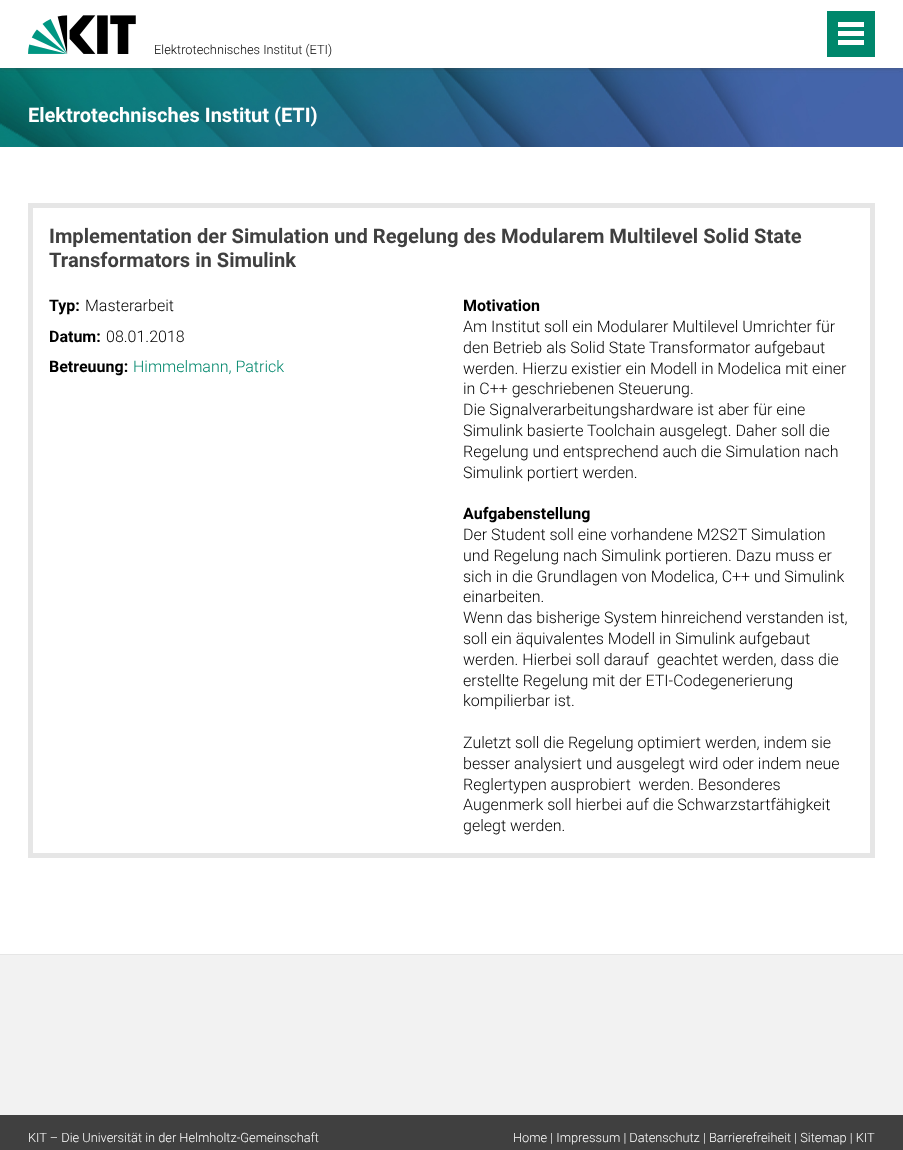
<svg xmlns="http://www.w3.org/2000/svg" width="903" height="1150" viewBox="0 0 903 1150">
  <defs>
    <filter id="blur1" x="-50%" y="-200%" width="200%" height="500%"><feGaussianBlur stdDeviation="2.5"/></filter>
  </defs>
  <rect width="100%" height="100%" fill="#ffffff"/>
  <image x="0" y="68" width="903" height="79" href="img2.png"/>
  <rect x="0" y="0" width="903" height="68" fill="#404040" fill-opacity="0.5" filter="url(#blur1)"/>
  <rect x="0" y="0" width="903" height="68" fill="#ffffff"/>
  <image x="28" y="15" width="108" height="39" href="img1.png"/>
  <text x="154" y="54" font-family="Roboto" font-size="12.8" font-weight="300" fill="#000000">Elektrotechnisches Institut (ETI)</text>
  <rect x="827" y="11" width="48" height="46" fill="#00876c"/>
  <rect x="838" y="40" width="26" height="5" fill="#ffffff"/>
  <rect x="838" y="31" width="26" height="5" fill="#ffffff"/>
  <rect x="838" y="22" width="26" height="5" fill="#ffffff"/>
  <text x="28" y="122" font-family="Roboto" font-size="20" font-weight="bold" fill="#ffffff">Elektrotechnisches Institut (ETI)</text>
  <rect x="30.5" y="205.5" width="842" height="650" fill="none" stroke="#e6e6e6" stroke-width="5"/>
  <text x="49" y="243" font-family="Roboto" font-size="20.15" font-weight="bold" fill="#404040">Implementation der Simulation und Regelung des Modularem Multilevel Solid State</text>
  <text x="49" y="267" font-family="Roboto" font-size="20.15" font-weight="bold" fill="#404040">Transformators in Simulink</text>
  <text x="49" y="311" font-family="Roboto" font-size="16" font-weight="bold" fill="#000000">Typ:</text>
  <text x="85" y="311" font-family="Roboto" font-size="16" font-weight="300" fill="#000000">Masterarbeit</text>
  <text x="49" y="342" font-family="Roboto" font-size="16" font-weight="bold" fill="#000000">Datum:</text>
  <text x="106" y="342" font-family="Roboto" font-size="16" font-weight="300" fill="#000000">08.01.2018</text>
  <text x="49" y="372" font-family="Roboto" font-size="16" font-weight="bold" fill="#000000">Betreuung:</text>
  <text x="133" y="372" font-family="Roboto" font-size="16" font-weight="300" fill="#00876c">Himmelmann, Patrick</text>
  <text x="463" y="311" font-family="Roboto" font-size="16" font-weight="bold" fill="#000000">Motivation</text>
  <text x="463" y="332" font-family="Roboto" font-size="16" font-weight="300" fill="#000000">Am Institut soll ein Modularer Multilevel Umrichter für</text>
  <text x="463" y="353" font-family="Roboto" font-size="16" font-weight="300" fill="#000000">den Betrieb als Solid State Transformator aufgebaut</text>
  <text x="463" y="374" font-family="Roboto" font-size="16" font-weight="300" fill="#000000">werden. Hierzu existier ein Modell in Modelica mit einer</text>
  <text x="463" y="394" font-family="Roboto" font-size="16" font-weight="300" fill="#000000">in C++ geschriebenen Steuerung.</text>
  <text x="463" y="415" font-family="Roboto" font-size="16" font-weight="300" fill="#000000">Die Signalverarbeitungshardware ist aber für eine</text>
  <text x="463" y="436" font-family="Roboto" font-size="16" font-weight="300" fill="#000000">Simulink basierte Toolchain ausgelegt. Daher soll die</text>
  <text x="463" y="457" font-family="Roboto" font-size="16" font-weight="300" fill="#000000">Regelung und entsprechend auch die Simulation nach</text>
  <text x="463" y="478" font-family="Roboto" font-size="16" font-weight="300" fill="#000000">Simulink portiert werden.</text>
  <text x="463" y="519" font-family="Roboto" font-size="16" font-weight="bold" fill="#000000">Aufgabenstellung</text>
  <text x="463" y="540" font-family="Roboto" font-size="16" font-weight="300" fill="#000000">Der Student soll eine vorhandene M2S2T Simulation</text>
  <text x="463" y="561" font-family="Roboto" font-size="16" font-weight="300" fill="#000000">und Regelung nach Simulink portieren. Dazu muss er</text>
  <text x="463" y="582" font-family="Roboto" font-size="16" font-weight="300" fill="#000000">sich in die Grundlagen von Modelica, C++ und Simulink</text>
  <text x="463" y="602" font-family="Roboto" font-size="16" font-weight="300" fill="#000000">einarbeiten.</text>
  <text x="463" y="623" font-family="Roboto" font-size="16" font-weight="300" fill="#000000">Wenn das bisherige System hinreichend verstanden ist,</text>
  <text x="463" y="644" font-family="Roboto" font-size="16" font-weight="300" fill="#000000">soll ein äquivalentes Modell in Simulink aufgebaut</text>
  <text x="463" y="665" font-family="Roboto" font-size="16" font-weight="300" fill="#000000" xml:space="preserve">werden. Hierbei soll darauf  geachtet werden, dass die</text>
  <text x="463" y="686" font-family="Roboto" font-size="16" font-weight="300" fill="#000000">erstellte Regelung mit der ETI-Codegenerierung</text>
  <text x="463" y="706" font-family="Roboto" font-size="16" font-weight="300" fill="#000000">kompilierbar ist.</text>
  <text x="463" y="748" font-family="Roboto" font-size="16" font-weight="300" fill="#000000">Zuletzt soll die Regelung optimiert werden, indem sie</text>
  <text x="463" y="769" font-family="Roboto" font-size="16" font-weight="300" fill="#000000">besser analysiert und ausgelegt wird oder indem neue</text>
  <text x="463" y="790" font-family="Roboto" font-size="16" font-weight="300" fill="#000000" xml:space="preserve">Reglertypen ausprobiert  werden. Besonderes</text>
  <text x="463" y="810" font-family="Roboto" font-size="16" font-weight="300" fill="#000000">Augenmerk soll hierbei auf die Schwarzstartfähigkeit</text>
  <text x="463" y="831" font-family="Roboto" font-size="16" font-weight="300" fill="#000000">gelegt werden.</text>
  <rect x="0" y="955" width="903" height="160" fill="#f2f2f2"/>
  <rect x="0" y="954" width="903" height="1" fill="#e6e6e6"/>
  <rect x="0" y="1115" width="903" height="35" fill="#404040"/>
  <text x="28" y="1142" font-family="Roboto" font-size="12.8" font-weight="300" fill="#ffffff">KIT – Die Universität in der Helmholtz-Gemeinschaft</text>
  <text x="513" y="1142" font-family="Roboto" font-size="12.8" font-weight="300" fill="#ffffff">Home | Impressum | Datenschutz | Barrierefreiheit | Sitemap | KIT</text>
</svg>
